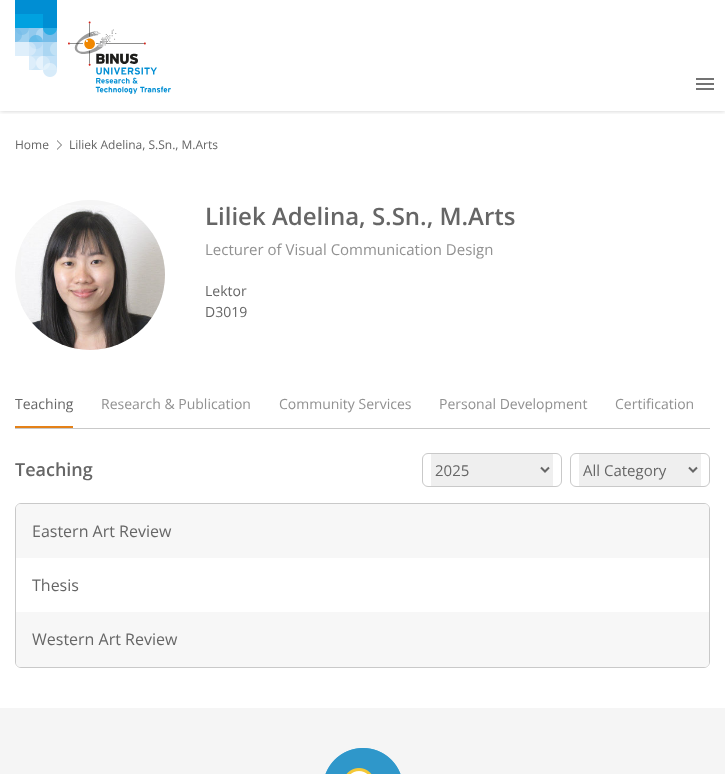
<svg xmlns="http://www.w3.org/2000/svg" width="725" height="774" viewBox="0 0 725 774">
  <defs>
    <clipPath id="clip1"><rect x="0" y="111" width="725" height="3"/></clipPath>
    <filter id="blur1" x="-50%" y="-200%" width="200%" height="500%"><feGaussianBlur stdDeviation="2.5"/></filter>
  </defs>
  <rect width="100%" height="100%" fill="#ffffff"/>
  <g clip-path="url(#clip1)">
    <rect x="0" y="0" width="725" height="111" fill="#000000" fill-opacity="0.2" filter="url(#blur1)"/>
  </g>
  <image x="15" y="0" width="42" height="77" href="img1.png"/>
  <image x="68" y="21" width="103" height="73" href="img2.png"/>
  <image x="696" y="78" width="18" height="12" href="img3.png"/>
  <text x="15" y="149" font-family="Open Sans" font-size="12" fill="#666666">Home</text>
  <path d="M57 150V140L62 145Z" fill="#666666"/>
  <path d="M56 150V140L61 145Z" fill="#ffffff"/>
  <text x="69" y="149" font-family="Open Sans" font-size="12" fill="#666666">Liliek Adelina, S.Sn., M.Arts</text>
  <circle cx="90" cy="275" r="75" fill="#f5f5f5"/>
  <image x="21" y="205" width="144" height="145" href="img4.png"/>
  <text x="205" y="225" font-family="Open Sans" font-size="24" font-weight="600" fill="#666666">Liliek Adelina, S.Sn., M.Arts</text>
  <text x="205" y="255" font-family="Open Sans" font-size="15" fill="#919191">Lecturer of Visual Communication Design</text>
  <text x="205" y="296" font-family="Open Sans" font-size="14" fill="#666666">Lektor</text>
  <text x="205" y="317" font-family="Open Sans" font-size="14" fill="#666666">D3019</text>
  <rect x="15" y="428" width="695" height="1" fill="#c9c9c9"/>
  <rect x="15" y="426" width="58" height="2" fill="#e48118"/>
  <text x="15" y="409" font-family="Open Sans" font-size="14" fill="#666666">Teaching</text>
  <text x="101" y="409" font-family="Open Sans" font-size="14" fill="#919191">Research &amp; Publication</text>
  <text x="279" y="409" font-family="Open Sans" font-size="14" fill="#919191">Community Services</text>
  <text x="439" y="409" font-family="Open Sans" font-size="14" fill="#919191">Personal Development</text>
  <text x="615" y="409" font-family="Open Sans" font-size="14" fill="#919191">Certification</text>
  <text x="15" y="476" font-family="Open Sans" font-size="18" font-weight="600" fill="#666666">Teaching</text>
  <rect x="422.5" y="453.5" width="139" height="33" rx="5.5" fill="none" stroke="#c9c9c9"/>
  <rect x="431" y="454" width="122" height="32" fill="#efefef"/>
  <path d="M541 467.5L545 471.5L549 467.5" fill="none" stroke="#666666" stroke-width="2"/>
  <text x="435" y="476" font-family="Open Sans" font-size="15" fill="#666666">2025</text>
  <rect x="570.5" y="453.5" width="139" height="33" rx="5.5" fill="none" stroke="#c9c9c9"/>
  <rect x="579" y="454" width="122" height="32" fill="#efefef"/>
  <path d="M689 467.5L693 471.5L697 467.5" fill="none" stroke="#666666" stroke-width="2"/>
  <text x="583" y="476" font-family="Open Sans" font-size="15" fill="#666666">All Category</text>
  <rect x="15.5" y="503.5" width="694" height="164" rx="5.5" fill="none" stroke="#c9c9c9"/>
  <path d="M21 504H704C707 504 709 506 709 509V558H16V509C16 506 18 504 21 504Z" fill="#f7f7f7"/>
  <text x="32" y="537" font-family="Open Sans" font-size="16" fill="#666666">Eastern Art Review</text>
  <text x="32" y="591" font-family="Open Sans" font-size="16" fill="#666666">Thesis</text>
  <path d="M16 612H709V662C709 665 707 667 704 667H21C18 667 16 665 16 662Z" fill="#f7f7f7"/>
  <text x="32" y="645" font-family="Open Sans" font-size="16" fill="#666666">Western Art Review</text>
  <rect x="0" y="708" width="725" height="66" fill="#f5f5f5"/>
  <image x="325" y="748" width="76" height="26" href="img5.png"/>
</svg>
